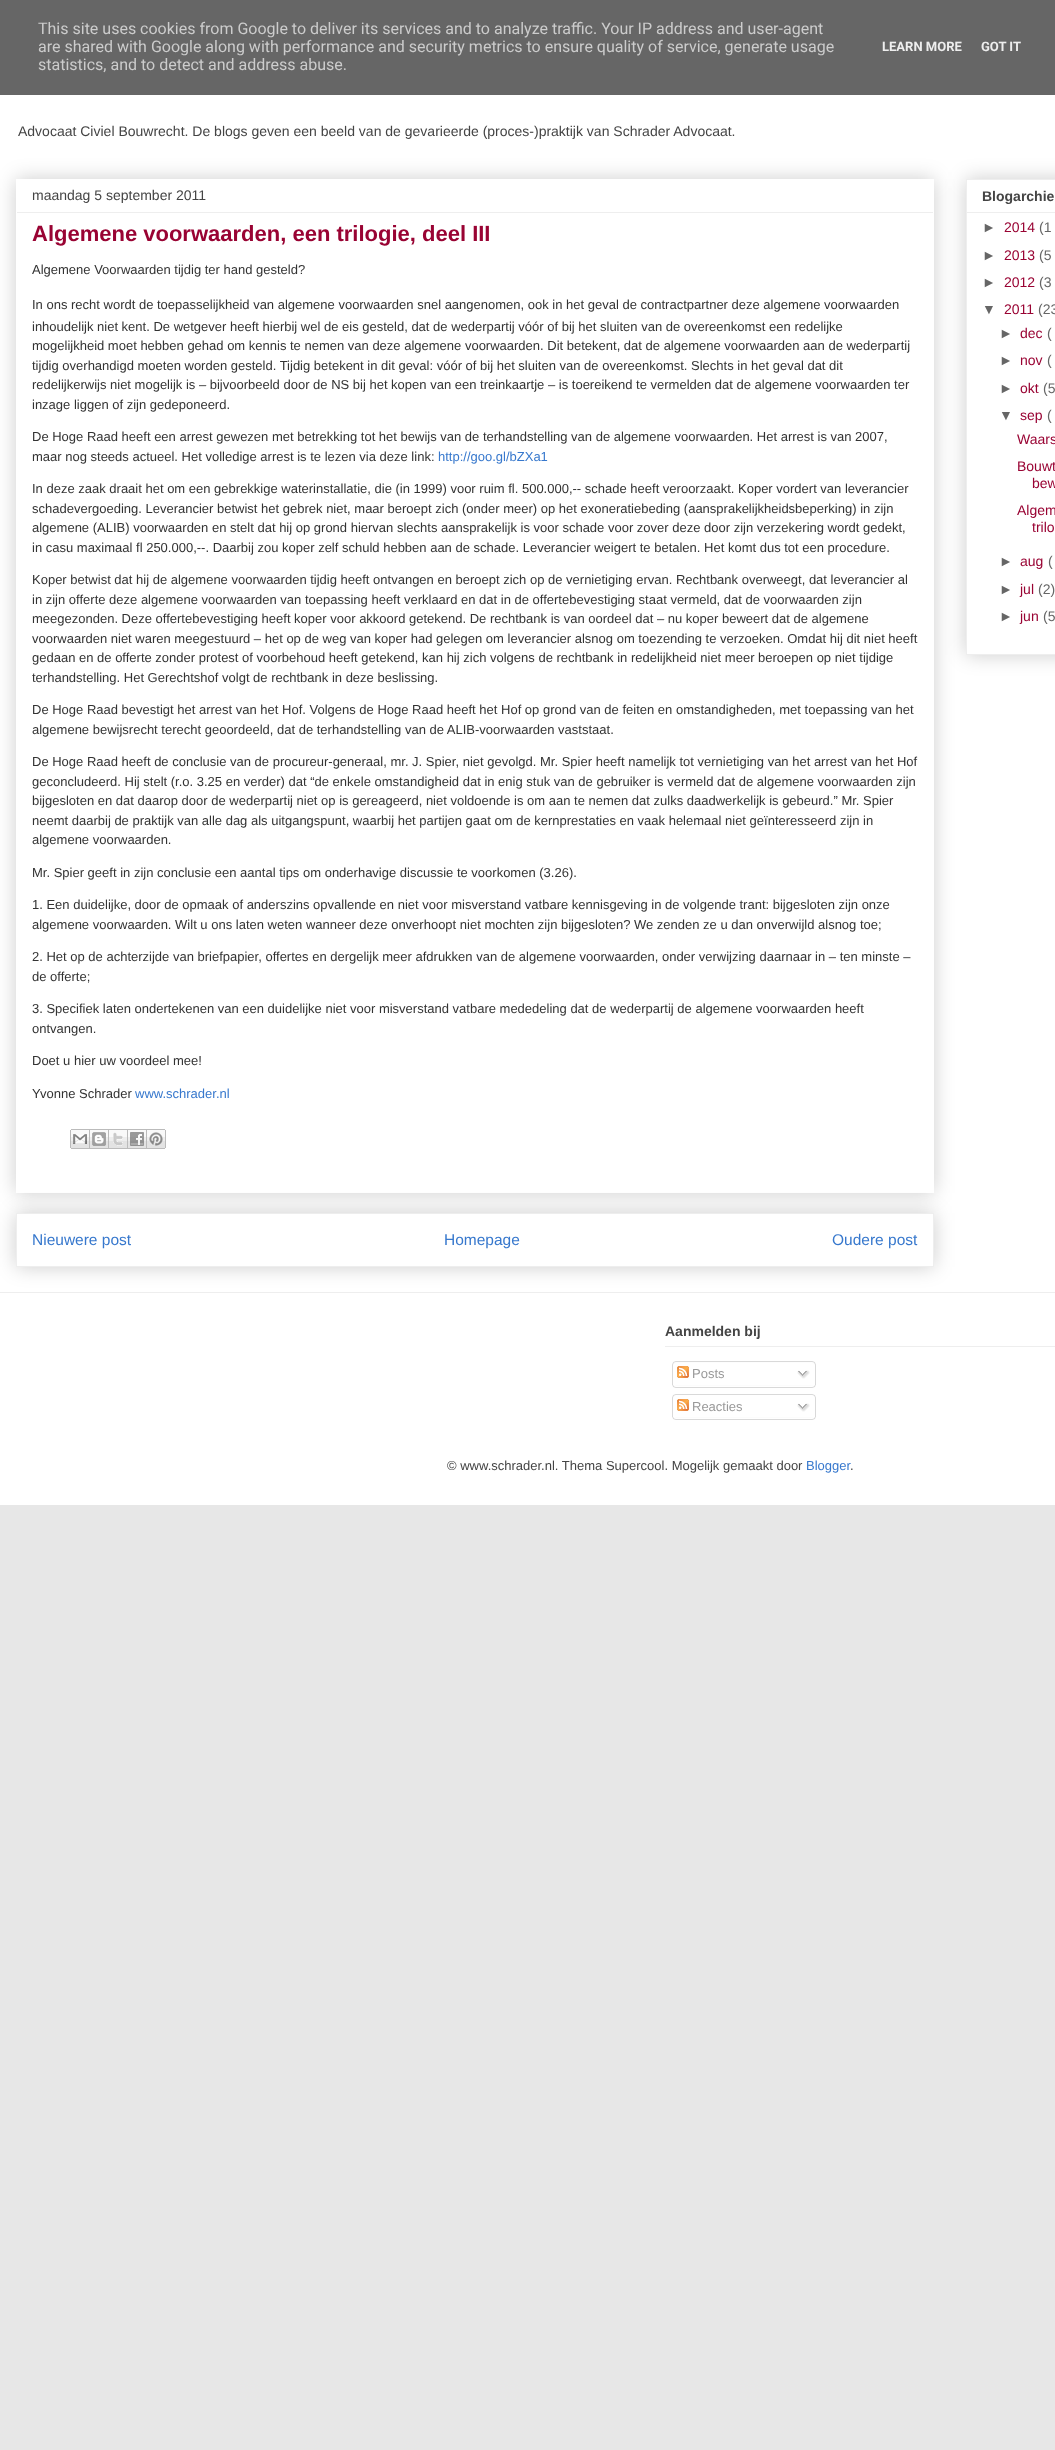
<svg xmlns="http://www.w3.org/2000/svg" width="1055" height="2450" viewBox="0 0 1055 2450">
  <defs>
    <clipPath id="clip1"><path d="M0 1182H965V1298H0ZM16 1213H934V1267H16Z" clip-rule="evenodd"/></clipPath>
    <filter id="blur1" x="-50%" y="-200%" width="200%" height="500%"><feGaussianBlur stdDeviation="10"/></filter>
    <clipPath id="clip2"><path d="M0 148H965V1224H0ZM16 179H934V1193H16Z" clip-rule="evenodd"/></clipPath>
    <clipPath id="clip3"><path d="M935 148H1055V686H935ZM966 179H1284V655H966Z" clip-rule="evenodd"/></clipPath>
  </defs>
  <rect width="100%" height="100%" fill="#e7e7e7"/>
  <rect x="0" y="0" width="1055" height="95" fill="#666666"/>
  <text x="38" y="34" font-family="Roboto" font-size="16" fill="#cccccc">This site uses cookies from Google to deliver its services and to analyze traffic. Your IP address and user-agent</text>
  <text x="38" y="52" font-family="Roboto" font-size="16" fill="#cccccc">are shared with Google along with performance and security metrics to ensure quality of service, generate usage</text>
  <text x="38" y="70" font-family="Roboto" font-size="16" fill="#cccccc">statistics, and to detect and address abuse.</text>
  <text x="882" y="51" font-family="Roboto" font-size="13" font-weight="bold" fill="#eeeeee">LEARN MORE</text>
  <text x="981" y="51" font-family="Roboto" font-size="13" font-weight="bold" fill="#eeeeee">GOT IT</text>
  <rect x="0" y="95" width="1055" height="1197" fill="#ffffff"/>
  <text x="18" y="136" font-family="Liberation Sans" font-size="14" fill="#444444">Advocaat Civiel Bouwrecht. De blogs geven een beeld van de gevarieerde (proces-)praktijk van Schrader Advocaat.</text>
  <g clip-path="url(#clip1)">
    <rect x="16" y="1213" width="918" height="54" fill="#000000" fill-opacity="0.2" filter="url(#blur1)"/>
  </g>
  <rect x="16.5" y="1213.5" width="917" height="53" fill="none" stroke="#eeeeee"/>
  <g clip-path="url(#clip2)">
    <rect x="16" y="179" width="918" height="1014" fill="#000000" fill-opacity="0.2" filter="url(#blur1)"/>
  </g>
  <text x="32" y="200" font-family="Liberation Sans" font-size="14" fill="#444444">maandag 5 september 2011</text>
  <rect x="17" y="212" width="916" height="1" fill="#eeeeee"/>
  <text x="32" y="241" font-family="Liberation Sans" font-size="22" font-weight="bold" fill="#990333">Algemene voorwaarden, een trilogie, deel III</text>
  <text x="32" y="274" font-family="Liberation Sans" font-size="13" fill="#333333">Algemene Voorwaarden tijdig ter hand gesteld?</text>
  <text x="32" y="309" font-family="Liberation Sans" font-size="13" fill="#333333">In ons recht wordt de toepasselijkheid van algemene voorwaarden snel aangenomen, ook in het geval de contractpartner deze algemene voorwaarden</text>
  <text x="32" y="331" font-family="Liberation Sans" font-size="13" fill="#333333">inhoudelijk niet kent. De wetgever heeft hierbij wel de eis gesteld, dat de wederpartij vóór of bij het sluiten van de overeenkomst een redelijke</text>
  <text x="32" y="350" font-family="Liberation Sans" font-size="13" fill="#333333">mogelijkheid moet hebben gehad om kennis te nemen van deze algemene voorwaarden. Dit betekent, dat de algemene voorwaarden aan de wederpartij</text>
  <text x="32" y="370" font-family="Liberation Sans" font-size="13" fill="#333333">tijdig overhandigd moeten worden gesteld. Tijdig betekent in dit geval: vóór of bij het sluiten van de overeenkomst. Slechts in het geval dat dit</text>
  <text x="32" y="389" font-family="Liberation Sans" font-size="13" fill="#333333">redelijkerwijs niet mogelijk is – bijvoorbeeld door de NS bij het kopen van een treinkaartje – is toereikend te vermelden dat de algemene voorwaarden ter</text>
  <text x="32" y="409" font-family="Liberation Sans" font-size="13" fill="#333333">inzage liggen of zijn gedeponeerd.</text>
  <text x="32" y="441" font-family="Liberation Sans" font-size="13" fill="#333333">De Hoge Raad heeft een arrest gewezen met betrekking tot het bewijs van de terhandstelling van de algemene voorwaarden. Het arrest is van 2007,</text>
  <text x="32" y="461" font-family="Liberation Sans" font-size="13" fill="#333333">maar nog steeds actueel. Het volledige arrest is te lezen via deze link:</text>
  <text x="438" y="461" font-family="Liberation Sans" font-size="13" fill="#3778cd">http://goo.gl/bZXa1</text>
  <text x="32" y="493" font-family="Liberation Sans" font-size="13" fill="#333333">In deze zaak draait het om een gebrekkige waterinstallatie, die (in 1999) voor ruim fl. 500.000,-- schade heeft veroorzaakt. Koper vordert van leverancier</text>
  <text x="32" y="513" font-family="Liberation Sans" font-size="13" fill="#333333">schadevergoeding. Leverancier betwist het gebrek niet, maar beroept zich (onder meer) op het exoneratiebeding (aansprakelijkheidsbeperking) in zijn</text>
  <text x="32" y="532" font-family="Liberation Sans" font-size="13" fill="#333333">algemene (ALIB) voorwaarden en stelt dat hij op grond hiervan slechts aansprakelijk is voor schade voor zover deze door zijn verzekering wordt gedekt,</text>
  <text x="32" y="552" font-family="Liberation Sans" font-size="13" fill="#333333">in casu maximaal fl 250.000,--. Daarbij zou koper zelf schuld hebben aan de schade. Leverancier weigert te betalen. Het komt dus tot een procedure.</text>
  <text x="32" y="584" font-family="Liberation Sans" font-size="13" fill="#333333">Koper betwist dat hij de algemene voorwaarden tijdig heeft ontvangen en beroept zich op de vernietiging ervan. Rechtbank overweegt, dat leverancier al</text>
  <text x="32" y="604" font-family="Liberation Sans" font-size="13" fill="#333333">in zijn offerte deze algemene voorwaarden van toepassing heeft verklaard en dat in de offertebevestiging staat vermeld, dat de voorwaarden zijn</text>
  <text x="32" y="623" font-family="Liberation Sans" font-size="13" fill="#333333">meegezonden. Deze offertebevestiging heeft koper voor akkoord getekend. De rechtbank is van oordeel dat – nu koper beweert dat de algemene</text>
  <text x="32" y="643" font-family="Liberation Sans" font-size="13" fill="#333333">voorwaarden niet waren meegestuurd – het op de weg van koper had gelegen om leverancier alsnog om toezending te verzoeken. Omdat hij dit niet heeft</text>
  <text x="32" y="662" font-family="Liberation Sans" font-size="13" fill="#333333">gedaan en de offerte zonder protest of voorbehoud heeft getekend, kan hij zich volgens de rechtbank in redelijkheid niet meer beroepen op niet tijdige</text>
  <text x="32" y="682" font-family="Liberation Sans" font-size="13" fill="#333333">terhandstelling. Het Gerechtshof volgt de rechtbank in deze beslissing.</text>
  <text x="32" y="714" font-family="Liberation Sans" font-size="13" fill="#333333">De Hoge Raad bevestigt het arrest van het Hof. Volgens de Hoge Raad heeft het Hof op grond van de feiten en omstandigheden, met toepassing van het</text>
  <text x="32" y="734" font-family="Liberation Sans" font-size="13" fill="#333333">algemene bewijsrecht terecht geoordeeld, dat de terhandstelling van de ALIB-voorwaarden vaststaat.</text>
  <text x="32" y="766" font-family="Liberation Sans" font-size="13" fill="#333333">De Hoge Raad heeft de conclusie van de procureur-generaal, mr. J. Spier, niet gevolgd. Mr. Spier heeft namelijk tot vernietiging van het arrest van het Hof</text>
  <text x="32" y="786" font-family="Liberation Sans" font-size="13" fill="#333333">geconcludeerd. Hij stelt (r.o. 3.25 en verder) dat “de enkele omstandigheid dat in enig stuk van de gebruiker is vermeld dat de algemene voorwaarden zijn</text>
  <text x="32" y="805" font-family="Liberation Sans" font-size="13" fill="#333333">bijgesloten en dat daarop door de wederpartij niet op is gereageerd, niet voldoende is om aan te nemen dat zulks daadwerkelijk is gebeurd.” Mr. Spier</text>
  <text x="32" y="825" font-family="Liberation Sans" font-size="13" fill="#333333">neemt daarbij de praktijk van alle dag als uitgangspunt, waarbij het partijen gaat om de kernprestaties en vaak helemaal niet geïnteresseerd zijn in</text>
  <text x="32" y="844" font-family="Liberation Sans" font-size="13" fill="#333333">algemene voorwaarden.</text>
  <text x="32" y="877" font-family="Liberation Sans" font-size="13" fill="#333333">Mr. Spier geeft in zijn conclusie een aantal tips om onderhavige discussie te voorkomen (3.26).</text>
  <text x="32" y="909" font-family="Liberation Sans" font-size="13" fill="#333333">1. Een duidelijke, door de opmaak of anderszins opvallende en niet voor misverstand vatbare kennisgeving in de volgende trant: bijgesloten zijn onze</text>
  <text x="32" y="929" font-family="Liberation Sans" font-size="13" fill="#333333">algemene voorwaarden. Wilt u ons laten weten wanneer deze onverhoopt niet mochten zijn bijgesloten? We zenden ze u dan onverwijld alsnog toe;</text>
  <text x="32" y="961" font-family="Liberation Sans" font-size="13" fill="#333333">2. Het op de achterzijde van briefpapier, offertes en dergelijk meer afdrukken van de algemene voorwaarden, onder verwijzing daarnaar in – ten minste –</text>
  <text x="32" y="981" font-family="Liberation Sans" font-size="13" fill="#333333">de offerte;</text>
  <text x="32" y="1013" font-family="Liberation Sans" font-size="13" fill="#333333">3. Specifiek laten ondertekenen van een duidelijke niet voor misverstand vatbare mededeling dat de wederpartij de algemene voorwaarden heeft</text>
  <text x="32" y="1033" font-family="Liberation Sans" font-size="13" fill="#333333">ontvangen.</text>
  <text x="32" y="1065" font-family="Liberation Sans" font-size="13" fill="#333333">Doet u hier uw voordeel mee!</text>
  <text x="32" y="1098" font-family="Liberation Sans" font-size="13" fill="#333333">Yvonne Schrader</text>
  <text x="135" y="1098" font-family="Liberation Sans" font-size="13" fill="#3778cd">www.schrader.nl</text>
  <image x="70" y="1129" width="20" height="20" href="img1.png"/>
  <image x="90" y="1129" width="19" height="20" href="img2.png"/>
  <image x="109" y="1129" width="19" height="20" href="img3.png"/>
  <image x="128" y="1129" width="19" height="20" href="img4.png"/>
  <image x="147" y="1129" width="19" height="20" href="img5.png"/>
  <text x="32" y="1245" font-family="Liberation Sans" font-size="15.5" fill="#3778cd">Nieuwere post</text>
  <text x="444" y="1245" font-family="Liberation Sans" font-size="15.5" fill="#3778cd">Homepage</text>
  <text x="832" y="1245" font-family="Liberation Sans" font-size="15.5" fill="#3778cd">Oudere post</text>
  <g clip-path="url(#clip3)">
    <rect x="966" y="179" width="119" height="476" fill="#000000" fill-opacity="0.2" filter="url(#blur1)"/>
  </g>
  <rect x="966.5" y="179.5" width="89" height="475" fill="none" stroke="#eeeeee"/>
  <text x="982" y="201" font-family="Liberation Sans" font-size="14" font-weight="bold" fill="#444444">Blogarchie</text>
  <rect x="967" y="212" width="88" height="1" fill="#eeeeee"/>
  <text x="982" y="232" font-family="Liberation Sans" font-size="14" fill="#666666">►</text>
  <text x="1004" y="232" font-family="Liberation Sans" font-size="14" fill="#990333">2014</text>
  <text x="1039" y="232" font-family="Liberation Sans" font-size="14" fill="#666666">(1</text>
  <text x="982" y="260" font-family="Liberation Sans" font-size="14" fill="#666666">►</text>
  <text x="1004" y="260" font-family="Liberation Sans" font-size="14" fill="#990333">2013</text>
  <text x="1039" y="260" font-family="Liberation Sans" font-size="14" fill="#666666">(5</text>
  <text x="982" y="287" font-family="Liberation Sans" font-size="14" fill="#666666">►</text>
  <text x="1004" y="287" font-family="Liberation Sans" font-size="14" fill="#990333">2012</text>
  <text x="1039" y="287" font-family="Liberation Sans" font-size="14" fill="#666666">(3</text>
  <text x="982" y="314" font-family="Liberation Sans" font-size="14" fill="#666666">▼</text>
  <text x="1004" y="314" font-family="Liberation Sans" font-size="14" fill="#990333">2011</text>
  <text x="1038" y="314" font-family="Liberation Sans" font-size="14" fill="#666666">(23</text>
  <text x="999" y="338" font-family="Liberation Sans" font-size="14" fill="#666666">►</text>
  <text x="1020" y="338" font-family="Liberation Sans" font-size="14" fill="#990333">dec</text>
  <text x="1047" y="338" font-family="Liberation Sans" font-size="14" fill="#666666">(</text>
  <text x="999" y="365" font-family="Liberation Sans" font-size="14" fill="#666666">►</text>
  <text x="1020" y="365" font-family="Liberation Sans" font-size="14" fill="#990333">nov</text>
  <text x="1047" y="365" font-family="Liberation Sans" font-size="14" fill="#666666">(</text>
  <text x="999" y="393" font-family="Liberation Sans" font-size="14" fill="#666666">►</text>
  <text x="1020" y="393" font-family="Liberation Sans" font-size="14" fill="#990333">okt</text>
  <text x="1043" y="393" font-family="Liberation Sans" font-size="14" fill="#666666">(5</text>
  <text x="999" y="420" font-family="Liberation Sans" font-size="14" fill="#666666">▼</text>
  <text x="1020" y="420" font-family="Liberation Sans" font-size="14" fill="#990333">sep</text>
  <text x="1047" y="420" font-family="Liberation Sans" font-size="14" fill="#666666">(</text>
  <text x="1017" y="444" font-family="Liberation Sans" font-size="14" fill="#990333">Waars</text>
  <text x="1017" y="471" font-family="Liberation Sans" font-size="14" fill="#990333">Bouwt</text>
  <text x="1032" y="488" font-family="Liberation Sans" font-size="14" fill="#990333">bew</text>
  <text x="1017" y="515" font-family="Liberation Sans" font-size="14" fill="#990333">Algem</text>
  <text x="1032" y="532" font-family="Liberation Sans" font-size="14" fill="#990333">trilo</text>
  <text x="999" y="566" font-family="Liberation Sans" font-size="14" fill="#666666">►</text>
  <text x="1020" y="566" font-family="Liberation Sans" font-size="14" fill="#990333">aug</text>
  <text x="1048" y="566" font-family="Liberation Sans" font-size="14" fill="#666666">(</text>
  <text x="999" y="594" font-family="Liberation Sans" font-size="14" fill="#666666">►</text>
  <text x="1020" y="594" font-family="Liberation Sans" font-size="14" fill="#990333">jul</text>
  <text x="1038" y="594" font-family="Liberation Sans" font-size="14" fill="#666666">(2)</text>
  <text x="999" y="621" font-family="Liberation Sans" font-size="14" fill="#666666">►</text>
  <text x="1020" y="621" font-family="Liberation Sans" font-size="14" fill="#990333">jun</text>
  <text x="1043" y="621" font-family="Liberation Sans" font-size="14" fill="#666666">(5</text>
  <rect x="0" y="1292" width="1055" height="1" fill="#eeeeee"/>
  <rect x="0" y="1293" width="1055" height="212" fill="#ffffff"/>
  <text x="665" y="1336" font-family="Liberation Sans" font-size="14" font-weight="bold" fill="#444444">Aanmelden bij</text>
  <rect x="665" y="1346" width="390" height="1" fill="#eeeeee"/>
  <image x="672" y="1361" width="144" height="24" href="img6.png"/>
  <image x="677" y="1366" width="12" height="12" href="img7.png"/>
  <text x="692" y="1378" font-family="Liberation Sans" font-size="13" fill="#999999">Posts</text>
  <image x="797" y="1370" width="13" height="9" href="img8.png"/>
  <image x="672" y="1385" width="144" height="3" href="img9.png"/>
  <image x="672" y="1394" width="144" height="23" href="img10.png"/>
  <image x="677" y="1399" width="12" height="12" href="img7.png"/>
  <text x="692" y="1411" font-family="Liberation Sans" font-size="13" fill="#999999">Reacties</text>
  <image x="797" y="1403" width="13" height="9" href="img8.png"/>
  <image x="672" y="1417" width="144" height="3" href="img9.png"/>
  <text x="447" y="1470" font-family="Liberation Sans" font-size="13" fill="#444444">© www.schrader.nl. Thema Supercool. Mogelijk gemaakt door</text>
  <text x="806" y="1470" font-family="Liberation Sans" font-size="13" fill="#3778cd">Blogger</text>
  <text x="850" y="1470" font-family="Liberation Sans" font-size="13" fill="#444444">.</text>
</svg>
